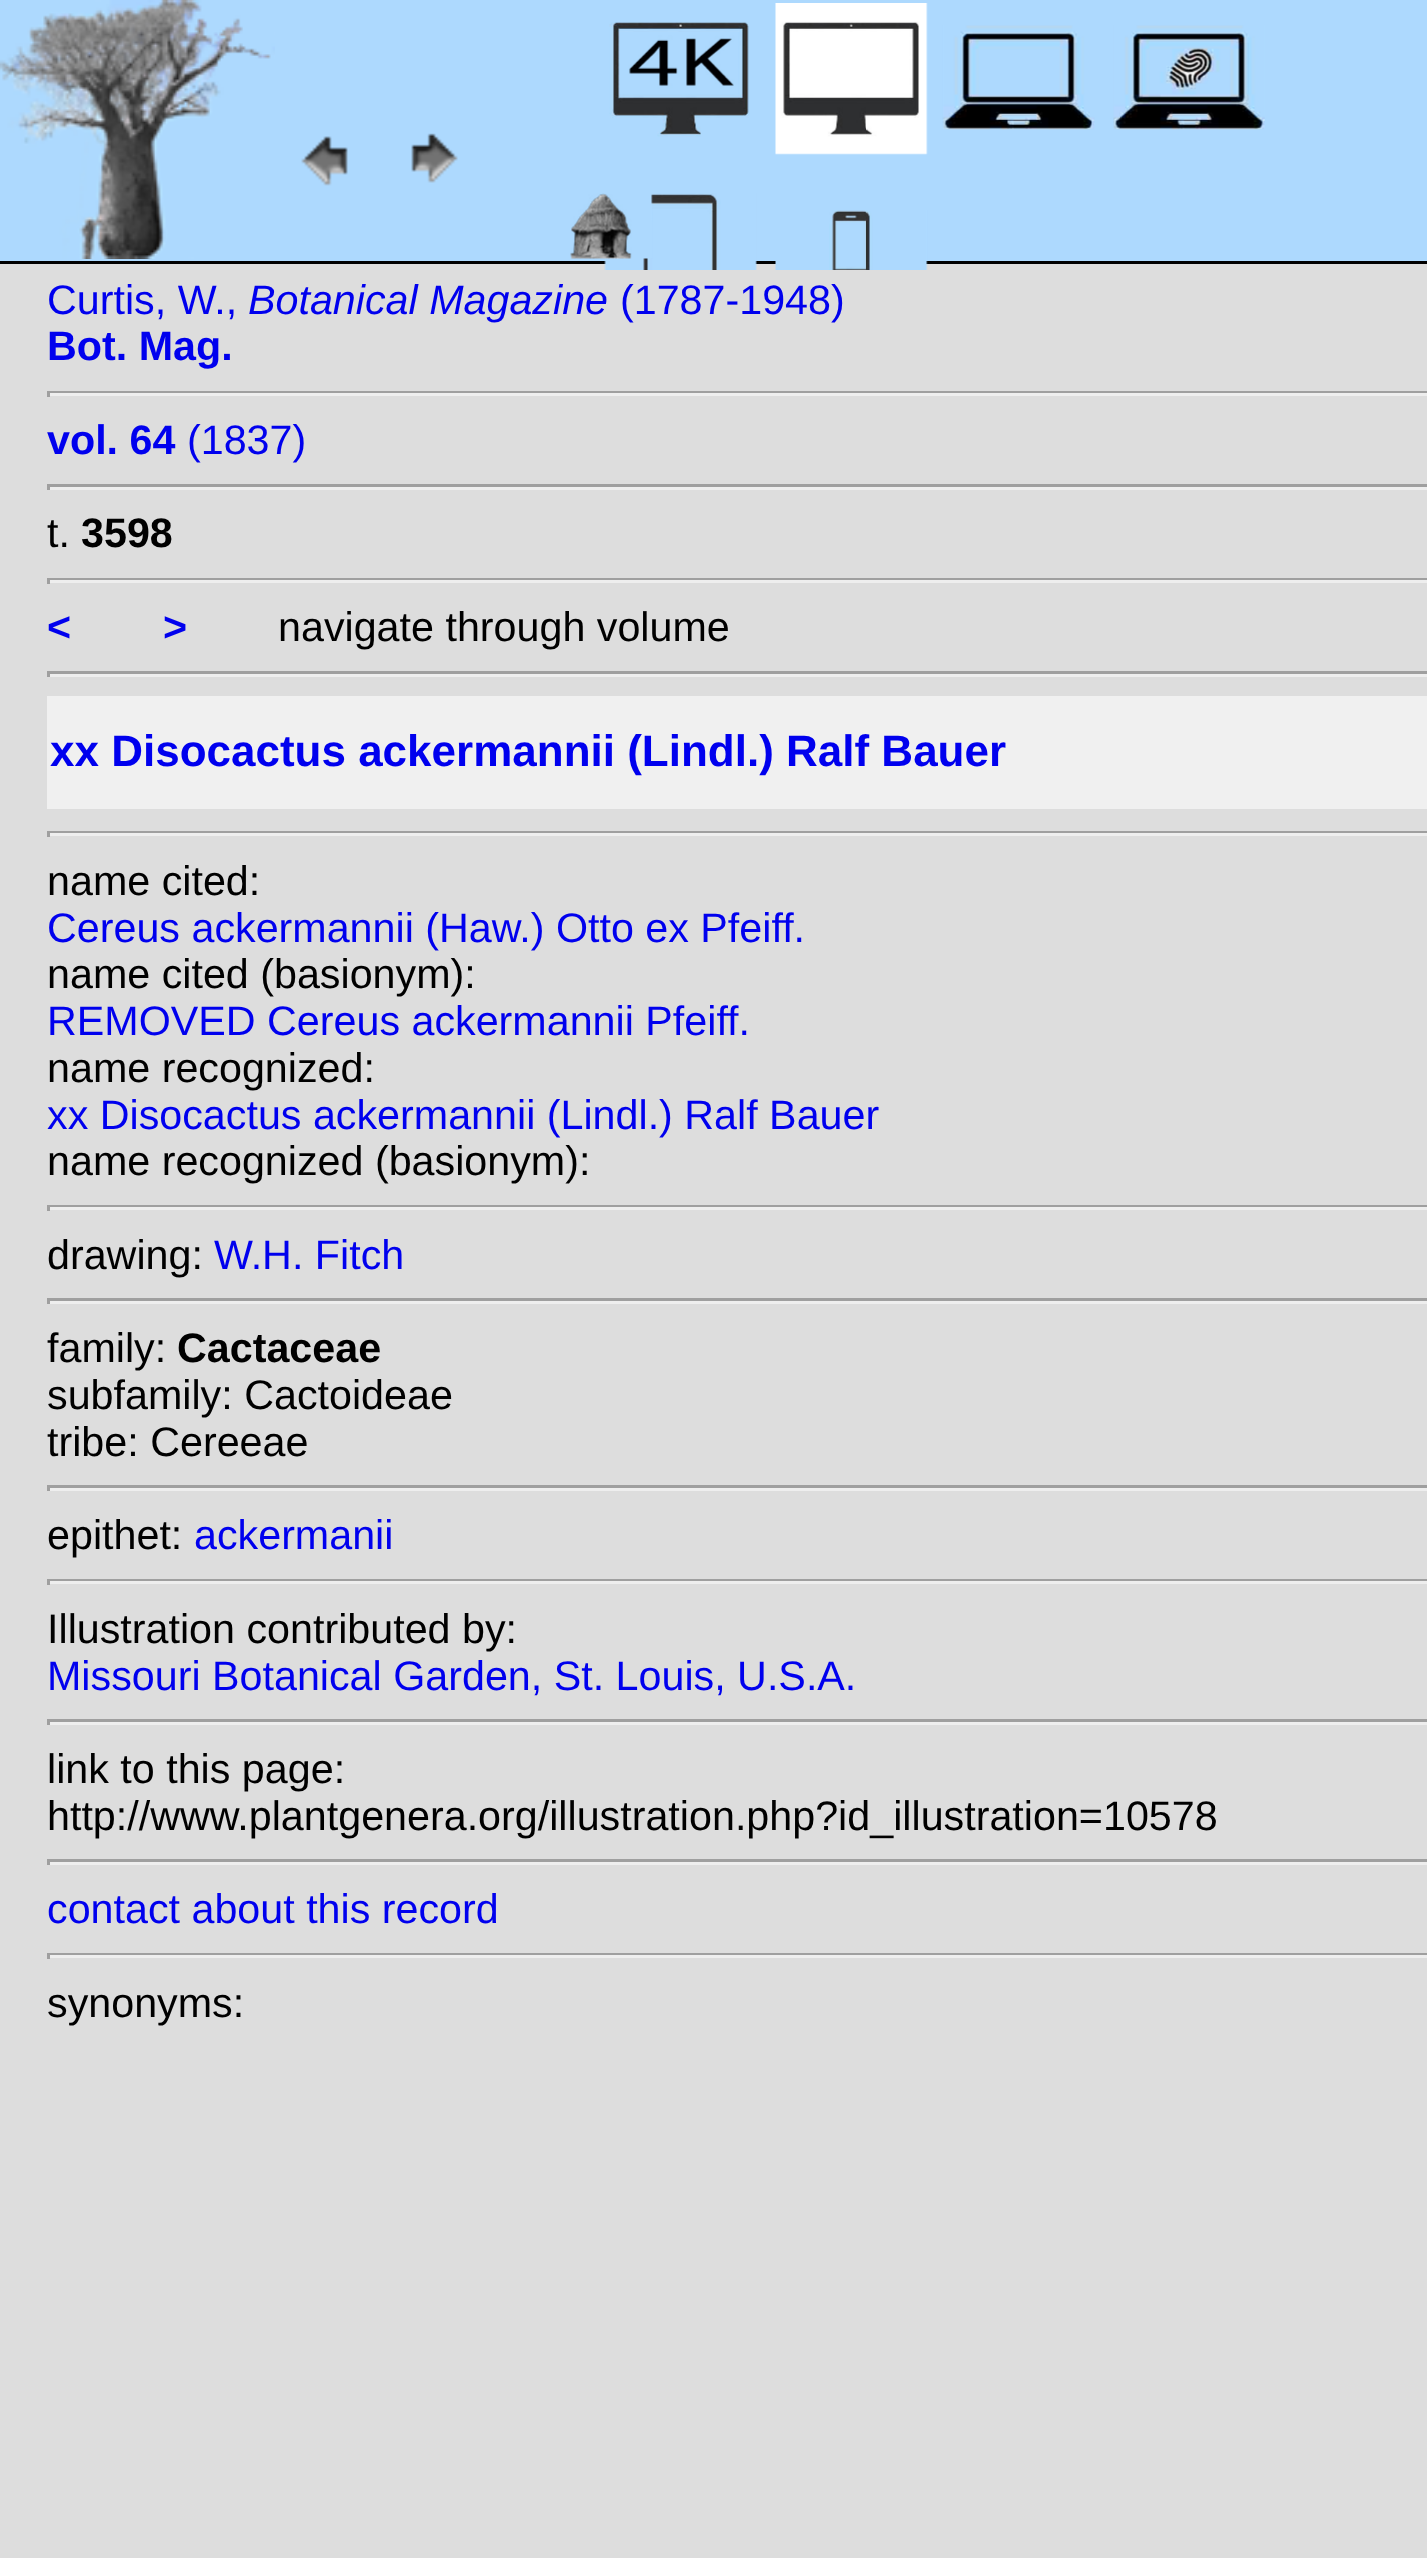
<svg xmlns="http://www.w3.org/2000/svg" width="1427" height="2558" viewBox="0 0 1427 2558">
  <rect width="100%" height="100%" fill="#dddddd"/>
  <rect x="0" y="0" width="1427" height="261" fill="#add9fe"/>
  <rect x="0" y="261" width="1427" height="3" fill="#000000"/>
  <image x="0" y="0" width="275" height="259" href="img1.png"/>
  <image x="301" y="136" width="47" height="50" href="img2.png"/>
  <image x="411" y="133" width="47" height="50" href="img3.png"/>
  <image x="609" y="22" width="140" height="115" href="img4.png"/>
  <image x="775" y="3" width="153" height="152" href="img5.png"/>
  <image x="942" y="25" width="153" height="105" href="img6.png"/>
  <image x="1113" y="25" width="152" height="105" href="img7.png"/>
  <image x="604" y="193" width="153" height="77" href="img8.png"/>
  <image x="775" y="210" width="153" height="60" href="img9.png"/>
  <image x="570" y="193" width="83" height="66" href="img10.png"/>
  <text x="47" y="314" font-family="Liberation Sans" font-size="41.25" fill="#0000ee">Curtis, W.,</text>
  <text x="248" y="314" font-family="Liberation Sans" font-size="41.25" font-style="italic" fill="#0000ee">Botanical Magazine</text>
  <text x="620" y="314" font-family="Liberation Sans" font-size="41.25" fill="#0000ee">(1787-1948)</text>
  <text x="47" y="360" font-family="Liberation Sans" font-size="41.25" font-weight="bold" fill="#0000ee">Bot. Mag.</text>
  <rect x="47" y="391" width="1380" height="2" fill="#9f9f9f"/>
  <rect x="47" y="393" width="1380" height="3" fill="#eeeeee"/>
  <rect x="47" y="391" width="3" height="6" fill="#9f9f9f"/>
  <text x="47" y="454" font-family="Liberation Sans" font-size="41.25" font-weight="bold" fill="#0000ee">vol. 64</text>
  <text x="187" y="454" font-family="Liberation Sans" font-size="41.25" fill="#0000ee">(1837)</text>
  <rect x="47" y="484" width="1380" height="3" fill="#9f9f9f"/>
  <rect x="47" y="487" width="1380" height="3" fill="#eeeeee"/>
  <rect x="47" y="484" width="3" height="6" fill="#9f9f9f"/>
  <text x="47" y="547" font-family="Liberation Sans" font-size="41.25" fill="#000000">t.</text>
  <text x="81" y="547" font-family="Liberation Sans" font-size="41.25" font-weight="bold" fill="#000000">3598</text>
  <rect x="47" y="578" width="1380" height="2" fill="#9f9f9f"/>
  <rect x="47" y="580" width="1380" height="3" fill="#eeeeee"/>
  <rect x="47" y="578" width="3" height="6" fill="#9f9f9f"/>
  <text x="47" y="641" font-family="Liberation Sans" font-size="41.25" font-weight="bold" fill="#0000ee">&lt;</text>
  <text x="163" y="641" font-family="Liberation Sans" font-size="41.25" font-weight="bold" fill="#0000ee">&gt;</text>
  <text x="278" y="641" font-family="Liberation Sans" font-size="41.25" fill="#000000">navigate through volume</text>
  <rect x="47" y="671" width="1380" height="3" fill="#9f9f9f"/>
  <rect x="47" y="674" width="1380" height="3" fill="#eeeeee"/>
  <rect x="47" y="671" width="3" height="6" fill="#9f9f9f"/>
  <rect x="47" y="696" width="1380" height="113" fill="#f0f0f0"/>
  <text x="50" y="766" font-family="Liberation Sans" font-size="44" font-weight="bold" fill="#0000ee">xx Disocactus ackermannii (Lindl.) Ralf Bauer</text>
  <rect x="47" y="831" width="1380" height="2" fill="#9f9f9f"/>
  <rect x="47" y="833" width="1380" height="3" fill="#eeeeee"/>
  <rect x="47" y="831" width="3" height="6" fill="#9f9f9f"/>
  <text x="47" y="895" font-family="Liberation Sans" font-size="41.25" fill="#000000">name cited:</text>
  <text x="47" y="942" font-family="Liberation Sans" font-size="41.25" fill="#0000ee">Cereus ackermannii (Haw.) Otto ex Pfeiff.</text>
  <text x="47" y="988" font-family="Liberation Sans" font-size="41.25" fill="#000000">name cited (basionym):</text>
  <text x="47" y="1035" font-family="Liberation Sans" font-size="41.25" fill="#0000ee">REMOVED Cereus ackermannii Pfeiff.</text>
  <text x="47" y="1082" font-family="Liberation Sans" font-size="41.25" fill="#000000">name recognized:</text>
  <text x="47" y="1129" font-family="Liberation Sans" font-size="41.25" fill="#0000ee">xx Disocactus ackermannii (Lindl.) Ralf Bauer</text>
  <text x="47" y="1175" font-family="Liberation Sans" font-size="41.25" fill="#000000">name recognized (basionym):</text>
  <rect x="47" y="1205" width="1380" height="2" fill="#9f9f9f"/>
  <rect x="47" y="1207" width="1380" height="3" fill="#eeeeee"/>
  <rect x="47" y="1205" width="3" height="6" fill="#9f9f9f"/>
  <text x="47" y="1269" font-family="Liberation Sans" font-size="41.25" fill="#000000">drawing:</text>
  <text x="214" y="1269" font-family="Liberation Sans" font-size="41.25" fill="#0000ee">W.H. Fitch</text>
  <rect x="47" y="1298" width="1380" height="3" fill="#9f9f9f"/>
  <rect x="47" y="1301" width="1380" height="3" fill="#eeeeee"/>
  <rect x="47" y="1298" width="3" height="6" fill="#9f9f9f"/>
  <text x="47" y="1362" font-family="Liberation Sans" font-size="41.25" fill="#000000">family:</text>
  <text x="177" y="1362" font-family="Liberation Sans" font-size="41.25" font-weight="bold" fill="#000000">Cactaceae</text>
  <text x="47" y="1409" font-family="Liberation Sans" font-size="41.25" fill="#000000">subfamily: Cactoideae</text>
  <text x="47" y="1456" font-family="Liberation Sans" font-size="41.25" fill="#000000">tribe: Cereeae</text>
  <rect x="47" y="1485" width="1380" height="3" fill="#9f9f9f"/>
  <rect x="47" y="1488" width="1380" height="3" fill="#eeeeee"/>
  <rect x="47" y="1485" width="3" height="6" fill="#9f9f9f"/>
  <text x="47" y="1549" font-family="Liberation Sans" font-size="41.25" fill="#000000">epithet:</text>
  <text x="194" y="1549" font-family="Liberation Sans" font-size="41.25" fill="#0000ee">ackermanii</text>
  <rect x="47" y="1579" width="1380" height="2" fill="#9f9f9f"/>
  <rect x="47" y="1581" width="1380" height="3" fill="#eeeeee"/>
  <rect x="47" y="1579" width="3" height="6" fill="#9f9f9f"/>
  <text x="47" y="1643" font-family="Liberation Sans" font-size="41.25" fill="#000000">Illustration contributed by:</text>
  <text x="47" y="1690" font-family="Liberation Sans" font-size="41.25" fill="#0000ee">Missouri Botanical Garden, St. Louis, U.S.A.</text>
  <rect x="47" y="1719" width="1380" height="3" fill="#9f9f9f"/>
  <rect x="47" y="1722" width="1380" height="3" fill="#eeeeee"/>
  <rect x="47" y="1719" width="3" height="6" fill="#9f9f9f"/>
  <text x="47" y="1783" font-family="Liberation Sans" font-size="41.25" fill="#000000">link to this page:</text>
  <text x="47" y="1830" font-family="Liberation Sans" font-size="41.25" fill="#000000">http://www.plantgenera.org/illustration.php?id_illustration=10578</text>
  <rect x="47" y="1859" width="1380" height="3" fill="#9f9f9f"/>
  <rect x="47" y="1862" width="1380" height="3" fill="#eeeeee"/>
  <rect x="47" y="1859" width="3" height="6" fill="#9f9f9f"/>
  <text x="47" y="1923" font-family="Liberation Sans" font-size="41.25" fill="#0000ee">contact about this record</text>
  <rect x="47" y="1953" width="1380" height="2" fill="#9f9f9f"/>
  <rect x="47" y="1955" width="1380" height="3" fill="#eeeeee"/>
  <rect x="47" y="1953" width="3" height="6" fill="#9f9f9f"/>
  <text x="47" y="2017" font-family="Liberation Sans" font-size="41.25" fill="#000000">synonyms:</text>
</svg>
